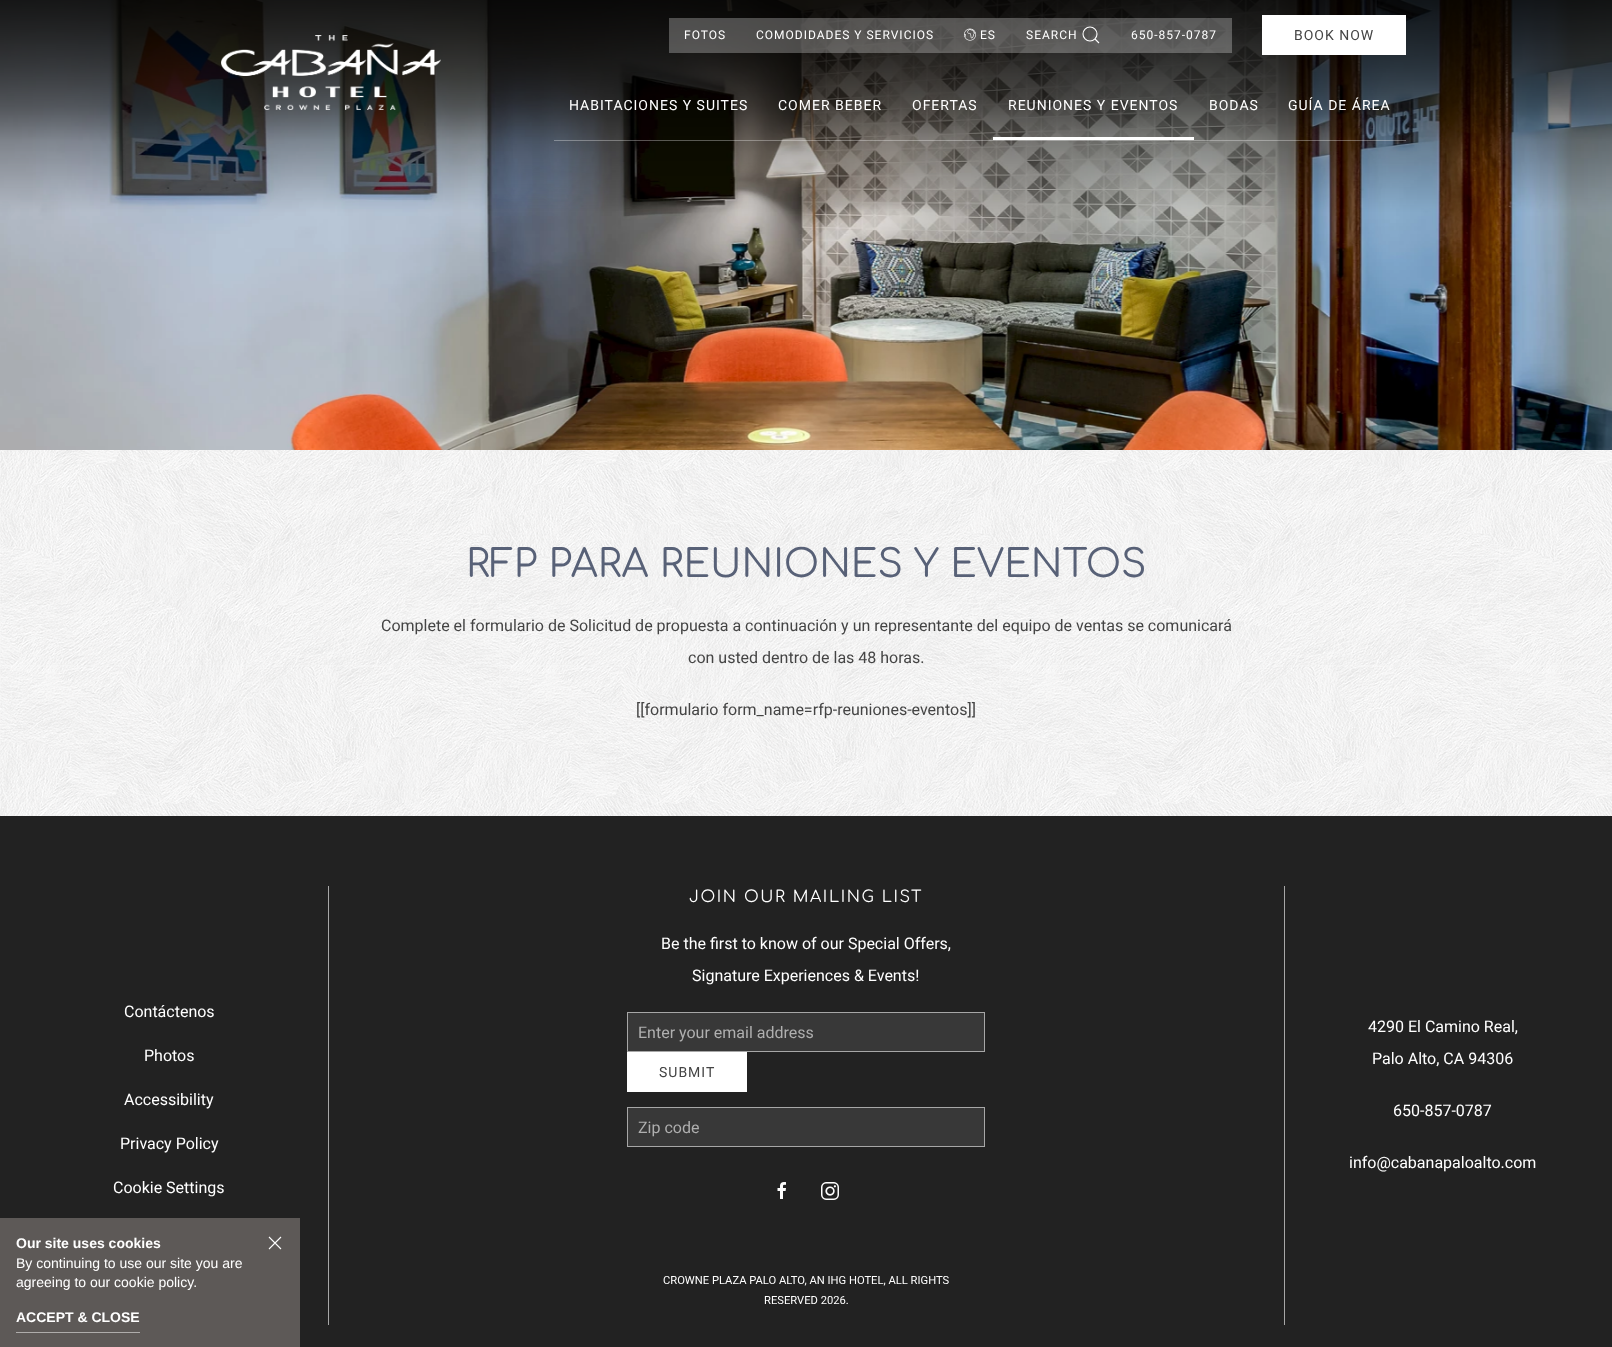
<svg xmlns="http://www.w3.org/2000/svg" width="1612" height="1347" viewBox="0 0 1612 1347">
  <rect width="100%" height="100%" fill="#ffffff"/>
  <image x="0" y="450" width="1612" height="366" href="img1.png"/>
  <image x="0" y="0" width="1612" height="450" href="img4.png"/>
  <rect x="669" y="18" width="563" height="35" fill="#ffffff" fill-opacity="0.27"/>
  <text x="684" y="39" font-family="Roboto" font-size="12" letter-spacing="1" fill="#ffffff">FOTOS</text>
  <text x="756" y="39" font-family="Roboto" font-size="12" letter-spacing="1" fill="#ffffff">COMODIDADES Y SERVICIOS</text>
  <image x="964" y="28" width="12" height="13" href="img2.png"/>
  <text x="980" y="39" font-family="Roboto" font-size="12" letter-spacing="1" fill="#ffffff">ES</text>
  <text x="1026" y="39" font-family="Roboto" font-size="12" letter-spacing="1" fill="#ffffff">SEARCH</text>
  <circle cx="1090" cy="34" r="7" fill="none" stroke="#ffffff" stroke-width="1.1"/>
  <path d="M1095 39L1099 43Z" fill="none" stroke="#ffffff" stroke-width="1.1"/>
  <text x="1131" y="39" font-family="Roboto" font-size="12" letter-spacing="1" fill="#ffffff">650-857-0787</text>
  <rect x="1262" y="15" width="144" height="40" fill="#ffffff"/>
  <text x="1294" y="40" font-family="Roboto" font-size="14" letter-spacing="1" fill="#444444">BOOK NOW</text>
  <image x="221" y="35" width="220" height="75" href="img3.png"/>
  <rect x="554" y="140" width="852" height="1" fill="#ffffff" fill-opacity="0.32"/>
  <text x="569" y="110" font-family="Roboto" font-size="14" letter-spacing="1" fill="#ffffff">HABITACIONES Y SUITES</text>
  <text x="778" y="110" font-family="Roboto" font-size="14" letter-spacing="1" fill="#ffffff">COMER BEBER</text>
  <text x="912" y="110" font-family="Roboto" font-size="14" letter-spacing="1" fill="#ffffff">OFERTAS</text>
  <text x="1008" y="110" font-family="Roboto" font-size="14" letter-spacing="1" fill="#ffffff">REUNIONES Y EVENTOS</text>
  <rect x="993" y="137" width="201" height="3" fill="#ffffff"/>
  <text x="1209" y="110" font-family="Roboto" font-size="14" letter-spacing="1" fill="#ffffff">BODAS</text>
  <text x="1288" y="110" font-family="Roboto" font-size="14" letter-spacing="1" fill="#ffffff">GUÍA DE ÁREA</text>
  <text x="466" y="577" font-family="Comfortaa" font-size="38.4" fill="#586177">RFP PARA REUNIONES Y EVENTOS</text>
  <text x="381" y="631" font-family="Roboto" font-size="16" fill="#444444">Complete el formulario de Solicitud de propuesta a continuación y un representante del equipo de ventas se comunicará</text>
  <text x="688" y="663" font-family="Roboto" font-size="16" fill="#444444">con usted dentro de las 48 horas.</text>
  <text x="636" y="715" font-family="Roboto" font-size="16" fill="#444444">[[formulario form_name=rfp-reuniones-eventos]]</text>
  <rect x="0" y="816" width="1612" height="531" fill="#222222"/>
  <text x="124" y="1017" font-family="Roboto" font-size="16" fill="#ffffff">Contáctenos</text>
  <text x="144" y="1061" font-family="Roboto" font-size="16" fill="#ffffff">Photos</text>
  <text x="124" y="1105" font-family="Roboto" font-size="16" fill="#ffffff">Accessibility</text>
  <text x="120" y="1149" font-family="Roboto" font-size="16" fill="#ffffff">Privacy Policy</text>
  <text x="113" y="1193" font-family="Roboto" font-size="16" fill="#ffffff">Cookie Settings</text>
  <rect x="328" y="886" width="1" height="439" fill="#a7a7a7"/>
  <text x="689" y="902" font-family="Comfortaa" font-size="16" letter-spacing="1.6" fill="#ffffff">JOIN OUR MAILING LIST</text>
  <text x="661" y="949" font-family="Roboto" font-size="16" fill="#ffffff">Be the first to know of our Special Offers,</text>
  <text x="692" y="981" font-family="Roboto" font-size="16" fill="#ffffff">Signature Experiences &amp; Events!</text>
  <rect x="627.5" y="1012.5" width="357" height="39" fill="#383838" stroke="#a7a7a7"/>
  <text x="638" y="1038" font-family="Roboto" font-size="16" fill="#afafaf">Enter your email address</text>
  <rect x="627" y="1052" width="120" height="40" fill="#ffffff"/>
  <text x="659" y="1077" font-family="Roboto" font-size="14" letter-spacing="1" fill="#444444">SUBMIT</text>
  <rect x="627.5" y="1107.5" width="357" height="39" fill="#383838" stroke="#a7a7a7"/>
  <text x="638" y="1133" font-family="Roboto" font-size="16" fill="#afafaf">Zip code</text>
  <image x="777" y="1182" width="9" height="17" href="img5.png"/>
  <image x="821" y="1182" width="18" height="18" href="img6.png"/>
  <text x="663" y="1284" font-family="Roboto" font-size="11.2" fill="#ffffff">CROWNE PLAZA PALO ALTO, AN IHG HOTEL, ALL RIGHTS</text>
  <text x="764" y="1304" font-family="Roboto" font-size="11.2" fill="#ffffff">RESERVED 2026.</text>
  <rect x="1284" y="886" width="1" height="439" fill="#a7a7a7"/>
  <text x="1368" y="1032" font-family="Roboto" font-size="16" fill="#ffffff">4290 El Camino Real,</text>
  <text x="1372" y="1064" font-family="Roboto" font-size="16" fill="#ffffff">Palo Alto, CA 94306</text>
  <text x="1393" y="1116" font-family="Roboto" font-size="16" fill="#ffffff">650-857-0787</text>
  <text x="1349" y="1168" font-family="Roboto" font-size="16" fill="#ffffff">info@cabanapaloalto.com</text>
  <rect x="0" y="1218" width="300" height="129" fill="#5d5957"/>
  <text x="16" y="1248" font-family="Liberation Sans" font-size="14" font-weight="bold" fill="#ffffff">Our site uses cookies</text>
  <path d="M281 1249L269 1237M281 1237L269 1249" fill="none" stroke="#ffffff" stroke-width="1.1"/>
  <text x="16" y="1268" font-family="Liberation Sans" font-size="14" fill="#ffffff">By continuing to use our site you are</text>
  <text x="16" y="1287" font-family="Liberation Sans" font-size="14" fill="#ffffff">agreeing to our cookie policy.</text>
  <text x="16" y="1322" font-family="Liberation Sans" font-size="14" font-weight="bold" fill="#ffffff">ACCEPT &amp; CLOSE</text>
  <rect x="16" y="1332" width="124" height="1" fill="#aeacab"/>
</svg>
